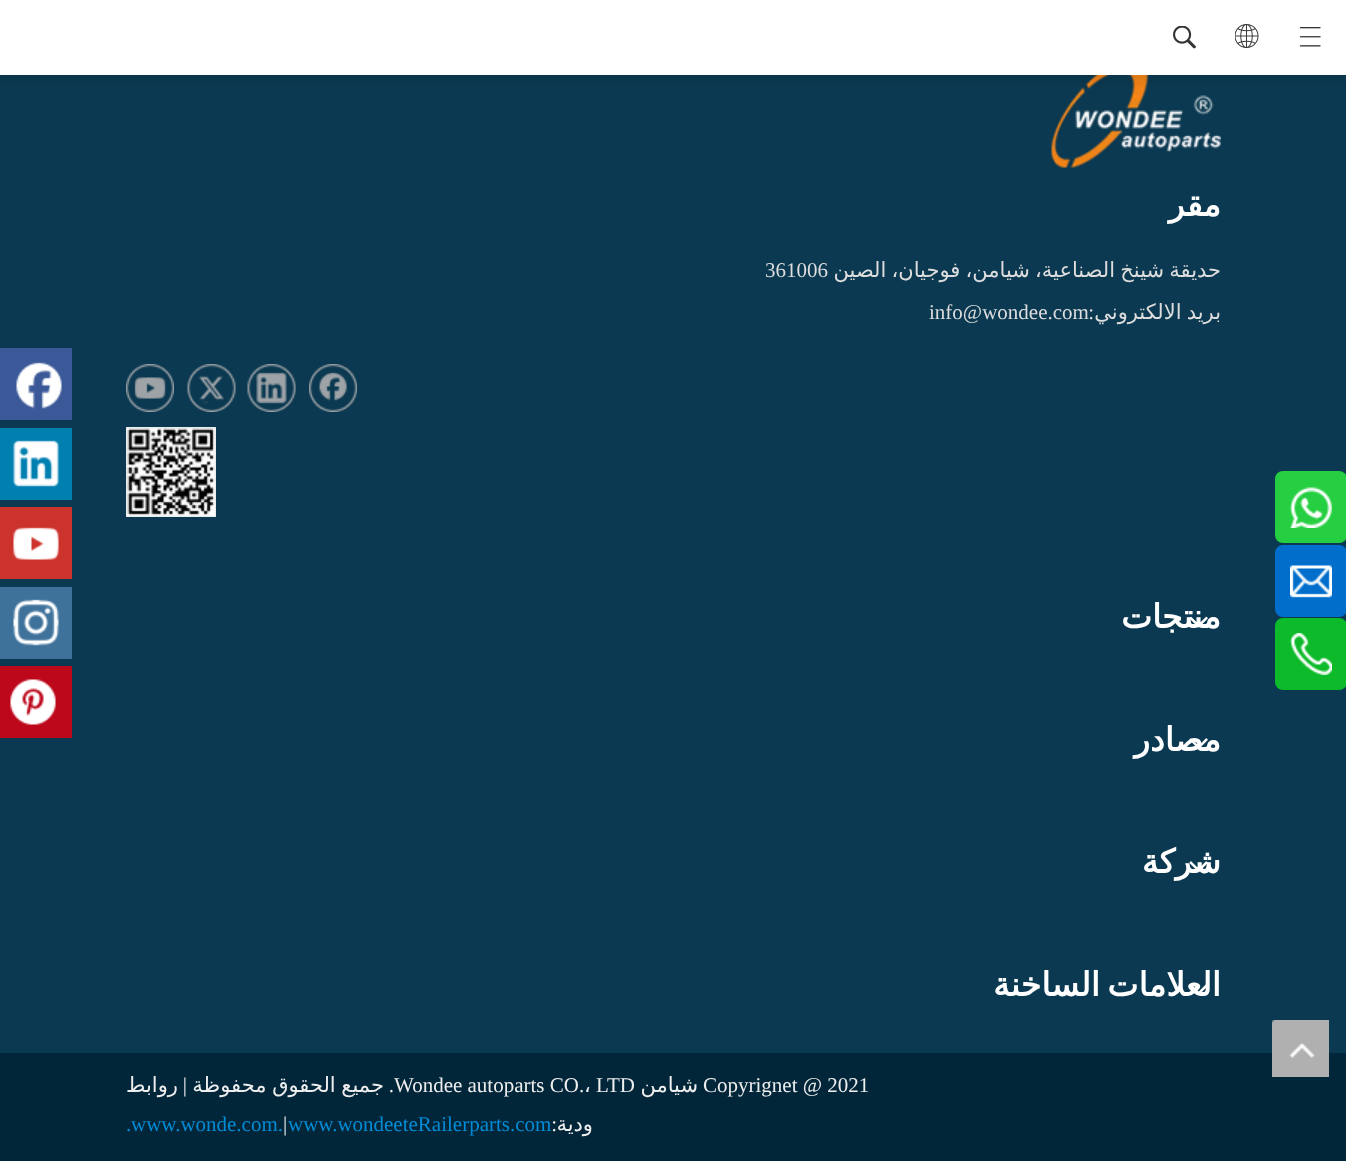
<svg xmlns="http://www.w3.org/2000/svg" width="1346" height="1161" viewBox="0 0 1346 1161">
  <defs>
    <clipPath id="clip1"><rect x="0" y="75" width="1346" height="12"/></clipPath>
    <filter id="blur1" x="-50%" y="-200%" width="200%" height="500%"><feGaussianBlur stdDeviation="6"/></filter>
    <clipPath id="clip2"><rect x="126" y="251" width="1095" height="84"/></clipPath>
  </defs>
  <rect width="100%" height="100%" fill="#0b3951"/>
  <rect x="0" y="0" width="1346" height="75" fill="#ffffff"/>
  <image x="1051" y="75" width="170" height="93" href="img5.png"/>
  <g clip-path="url(#clip1)">
    <rect x="0" y="8" width="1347" height="75" fill="#000000" fill-opacity="0.08" filter="url(#blur1)"/>
  </g>
  <image x="1299" y="27" width="22" height="20" href="img1.png"/>
  <image x="1235" y="24" width="24" height="24" href="img2.png"/>
  <image x="1173" y="26" width="23" height="23" href="img3.png"/>
  <rect x="0" y="1053" width="1346" height="108" fill="#022639"/>
  <image x="1272" y="1020" width="57" height="57" href="img4.png"/>
  <text x="1221" y="216" font-family="DejaVu Sans" font-size="33" font-weight="bold" direction="rtl" fill="#ffffff">مقر</text>
  <g clip-path="url(#clip2)">
    <text x="1221" y="277" word-spacing="-1.5" font-family="DejaVu Sans" font-size="21" direction="rtl" fill="#dddddd">حديقة شينخ الصناعية، شيامن، فوجيان، الصين</text>
  </g>
  <text x="765" y="277" font-family="Liberation Serif" font-size="21" fill="#dddddd">361006</text>
  <text x="1221" y="319" word-spacing="-1.5" font-family="DejaVu Sans" font-size="21" direction="rtl" fill="#dddddd">بريد الالكتروني</text>
  <text x="1094" y="319" font-family="Liberation Serif" font-size="21" direction="rtl" fill="#dddddd">:</text>
  <text x="929" y="319" font-family="Liberation Serif" font-size="21" fill="#dddddd">info@wondee.com</text>
  <image x="309" y="364" width="48" height="48" href="img6.png"/>
  <image x="247" y="364" width="49" height="48" href="img7.png"/>
  <image x="187" y="364" width="49" height="48" href="img8.png"/>
  <image x="126" y="364" width="48" height="48" href="img9.png"/>
  <image x="126" y="427" width="90" height="90" href="img10.png"/>
  <text x="1221" y="628" font-family="DejaVu Sans" font-size="33" font-weight="bold" direction="rtl" fill="#ffffff">منتجات</text>
  <image x="1189" y="616" width="19" height="12" href="img11.png"/>
  <text x="1221" y="751" font-family="DejaVu Sans" font-size="33" font-weight="bold" direction="rtl" fill="#ffffff">مصادر</text>
  <image x="1189" y="738" width="19" height="10" href="img12.png"/>
  <text x="1221" y="873" font-family="DejaVu Sans" font-size="33" font-weight="bold" direction="rtl" fill="#ffffff">شركة</text>
  <image x="1189" y="861" width="19" height="11" href="img13.png"/>
  <text x="1221" y="996" word-spacing="-3" font-family="DejaVu Sans" font-size="33" font-weight="bold" direction="rtl" fill="#ffffff">العلامات الساخنة</text>
  <image x="1189" y="984" width="19" height="11" href="img14.png"/>
  <rect x="0" y="348" width="72" height="72" fill="#3b5998"/>
  <image x="16" y="362" width="46" height="47" href="img15.png"/>
  <rect x="0" y="428" width="72" height="72" fill="#007fb1"/>
  <image x="13" y="440" width="46" height="47" href="img16.png"/>
  <rect x="0" y="507" width="72" height="72" fill="#cd332d"/>
  <image x="13" y="527" width="46" height="33" href="img17.png"/>
  <rect x="0" y="587" width="72" height="72" fill="#3f729b"/>
  <image x="13" y="599" width="46" height="47" href="img18.png"/>
  <rect x="0" y="666" width="72" height="72" fill="#bd081c"/>
  <image x="10" y="679" width="46" height="46" href="img19.png"/>
  <rect x="1275" y="471" width="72" height="72" rx="8" fill="#26cf41"/>
  <image x="1290" y="487" width="42" height="41" href="img20.png"/>
  <rect x="1275" y="545" width="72" height="72" rx="8" fill="#016ecb"/>
  <image x="1290" y="565" width="42" height="33" href="img21.png"/>
  <rect x="1275" y="618" width="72" height="72" rx="8" fill="#0dba2a"/>
  <image x="1290" y="633" width="42" height="42" href="img22.png"/>
  <text x="703" y="1092" font-family="Liberation Serif" font-size="21" fill="#eeeeee">Copyrignet @ 2021</text>
  <text x="698" y="1092" font-family="DejaVu Sans" font-size="21" direction="rtl" fill="#eeeeee">شيامن</text>
  <text x="596" y="1092" font-family="Liberation Serif" font-size="21" fill="#eeeeee">LTD</text>
  <text x="584" y="1092" font-family="DejaVu Sans" font-size="21" fill="#eeeeee">،</text>
  <text x="394" y="1092" font-family="Liberation Serif" font-size="21" fill="#eeeeee">Wondee autoparts CO.</text>
  <text x="394" y="1092" font-family="Liberation Serif" font-size="21" direction="rtl" fill="#eeeeee">.</text>
  <text x="384" y="1092" word-spacing="-1" font-family="DejaVu Sans" font-size="21" direction="rtl" fill="#eeeeee">جميع الحقوق محفوظة</text>
  <text x="187" y="1092" font-family="Liberation Serif" font-size="21" direction="rtl" fill="#eeeeee">|</text>
  <text x="178" y="1092" font-family="DejaVu Sans" font-size="21" direction="rtl" fill="#eeeeee">روابط</text>
  <text x="593" y="1131" font-family="DejaVu Sans" font-size="21" direction="rtl" fill="#eeeeee">ودية</text>
  <text x="557" y="1131" font-family="Liberation Serif" font-size="21" direction="rtl" fill="#eeeeee">:</text>
  <text x="288" y="1131" font-family="Liberation Serif" font-size="21" fill="#008cd6">www.wondeeteRailerparts.com</text>
  <text x="283" y="1131" font-family="Liberation Serif" font-size="21" fill="#eeeeee">|</text>
  <text x="131" y="1131" font-family="Liberation Serif" font-size="21" fill="#008cd6">www.wonde.com.</text>
  <text x="126" y="1131" font-family="Liberation Serif" font-size="21" fill="#008cd6">.</text>
</svg>
